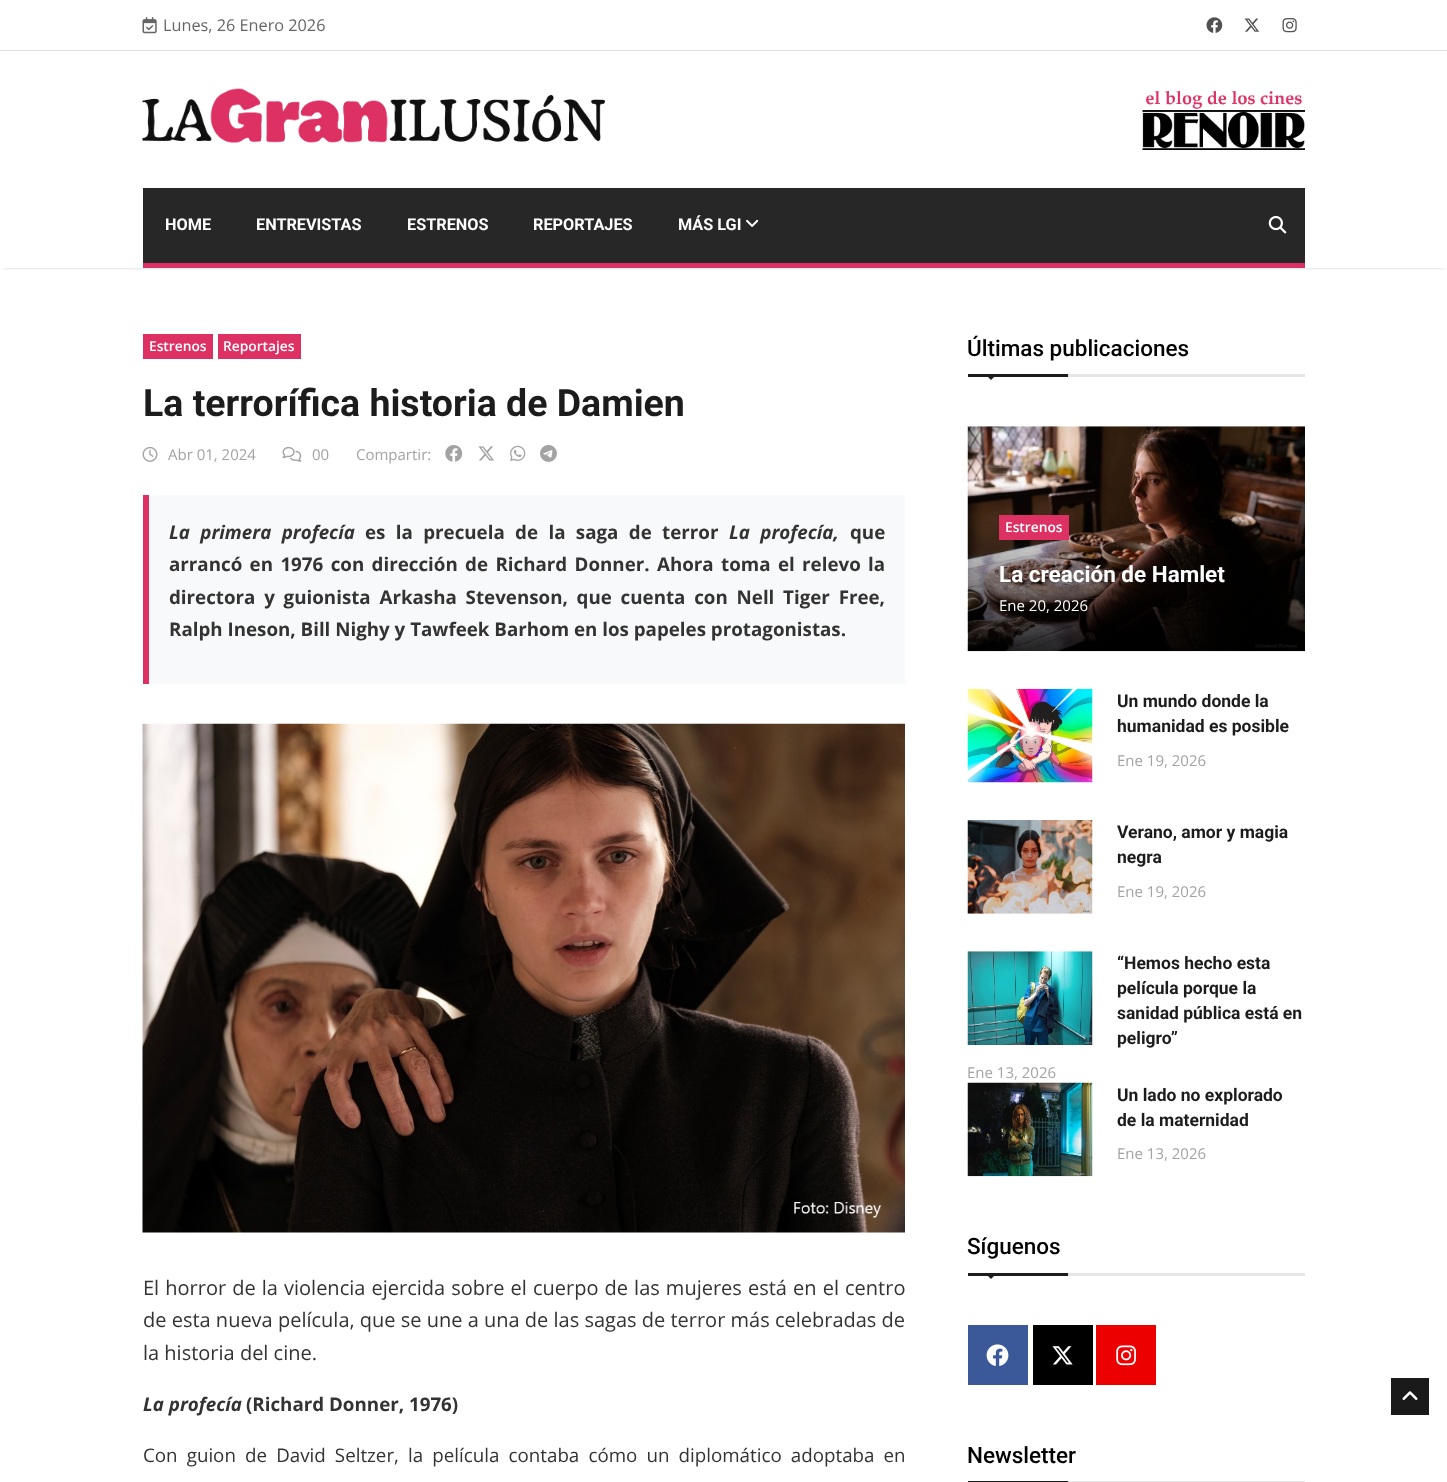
<svg xmlns="http://www.w3.org/2000/svg" width="1447" height="1482" viewBox="0 0 1447 1482">
  <defs>
    <clipPath id="clip1"><path d="M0 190H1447V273H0ZM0 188H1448V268H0Z" clip-rule="evenodd"/></clipPath>
    <filter id="blur1" x="-50%" y="-200%" width="200%" height="500%"><feGaussianBlur stdDeviation="1"/></filter>
    <linearGradient id="g1" gradientUnits="userSpaceOnUse" x1="1136" y1="426" x2="1136" y2="651"><stop offset="0.4" stop-color="#000000" stop-opacity="0"/><stop offset="1" stop-color="#000000" stop-opacity="0.85"/></linearGradient>
  </defs>
  <rect width="100%" height="100%" fill="#ffffff"/>
  <rect x="0" y="50" width="1447" height="1" fill="#dedede"/>
  <image x="142" y="17" width="15" height="17" href="img1.png"/>
  <text x="163" y="31" font-family="Open Sans" font-size="16.25" fill="#666666">Lunes, 26 Enero 2026</text>
  <image x="1206" y="17" width="17" height="16" href="img2.png"/>
  <image x="1244" y="18" width="16" height="14" href="img3.png"/>
  <image x="1282" y="18" width="15" height="15" href="img4.png"/>
  <image x="142" y="88" width="463" height="55" href="img5.png"/>
  <image x="1142" y="90" width="163" height="60" href="img6.png"/>
  <g clip-path="url(#clip1)">
    <rect x="3" y="194" width="1442" height="75" fill="#000000" fill-opacity="0.1" filter="url(#blur1)"/>
  </g>
  <rect x="143" y="188" width="1162" height="75" fill="#272727"/>
  <rect x="143" y="263" width="1162" height="5" fill="#de3163"/>
  <text x="165" y="230" font-family="Roboto" font-size="16.25" font-weight="bold" fill="#ffffff">HOME</text>
  <text x="256" y="230" font-family="Roboto" font-size="16.25" font-weight="bold" fill="#ffffff">ENTREVISTAS</text>
  <text x="407" y="230" font-family="Roboto" font-size="16.25" font-weight="bold" fill="#ffffff">ESTRENOS</text>
  <text x="533" y="230" font-family="Roboto" font-size="16.25" font-weight="bold" fill="#ffffff">REPORTAJES</text>
  <text x="678" y="230" font-family="Roboto" font-size="16.25" font-weight="bold" fill="#ffffff">MÁS LGI</text>
  <image x="746" y="219" width="13" height="8" href="img7.png"/>
  <image x="1268" y="215" width="19" height="19" href="img8.png"/>
  <rect x="143" y="334" width="70" height="25" fill="#de3163"/>
  <text x="149" y="351" font-family="Open Sans" font-size="13.75" font-weight="600" fill="#ffffff">Estrenos</text>
  <rect x="218" y="334" width="83" height="25" fill="#de3163"/>
  <text x="223" y="351" font-family="Open Sans" font-size="13.75" font-weight="600" fill="#ffffff">Reportajes</text>
  <text x="143" y="416" font-family="Roboto" font-size="37.5" font-weight="bold" fill="#1c1c1c">La terrorífica historia de Damien</text>
  <image x="142" y="446" width="16" height="16" href="img9.png"/>
  <text x="168" y="460" font-family="Open Sans" font-size="15" fill="#a3a3a3">Abr 01, 2024</text>
  <image x="282" y="446" width="20" height="16" href="img10.png"/>
  <text x="312" y="460" font-family="Open Sans" font-size="15" fill="#a3a3a3">00</text>
  <text x="356" y="460" font-family="Open Sans" font-size="15" fill="#a3a3a3">Compartir:</text>
  <image x="445" y="445" width="18" height="17" href="img11.png"/>
  <image x="478" y="446" width="16" height="15" href="img12.png"/>
  <image x="510" y="445" width="16" height="16" href="img13.png"/>
  <image x="540" y="445" width="17" height="17" href="img14.png"/>
  <rect x="149" y="495" width="756" height="189" fill="#f8f9fa"/>
  <rect x="143" y="495" width="6" height="189" fill="#de3163"/>
  <text x="169" y="539" word-spacing="5.5" font-family="Open Sans" font-size="18.75" font-weight="bold" font-style="italic" fill="#333333">La primera profecía</text>
  <text x="365" y="539" word-spacing="5.5" font-family="Open Sans" font-size="18.75" font-weight="bold" fill="#333333">es la precuela de la saga de terror</text>
  <text x="729" y="539" word-spacing="5.5" font-family="Open Sans" font-size="18.75" font-weight="bold" font-style="italic" fill="#333333">La profecía,</text>
  <text x="850" y="539" font-family="Open Sans" font-size="18.75" font-weight="bold" fill="#333333">que</text>
  <text x="169" y="571" word-spacing="2.5" font-family="Open Sans" font-size="18.75" font-weight="bold" fill="#333333">arrancó en 1976 con dirección de Richard Donner. Ahora toma el relevo la</text>
  <text x="169" y="604" word-spacing="3.9" font-family="Open Sans" font-size="18.75" font-weight="bold" fill="#333333">directora y guionista Arkasha Stevenson, que cuenta con Nell Tiger Free,</text>
  <text x="169" y="636" font-family="Open Sans" font-size="18.75" font-weight="bold" fill="#333333">Ralph Ineson, Bill Nighy y Tawfeek Barhom en los papeles protagonistas.</text>
  <image x="142" y="723" width="763" height="510" href="img15.png"/>
  <text x="143" y="1295" word-spacing="0.9" font-family="Open Sans" font-size="20" fill="#333333">El horror de la violencia ejercida sobre el cuerpo de las mujeres está en el centro</text>
  <text x="143" y="1327" font-family="Open Sans" font-size="20" fill="#333333">de esta nueva película, que se une a una de las sagas de terror más celebradas de</text>
  <text x="143" y="1360" font-family="Open Sans" font-size="20" fill="#333333">la historia del cine.</text>
  <text x="143" y="1411" font-family="Open Sans" font-size="18.75" font-weight="bold" font-style="italic" fill="#333333">La profecía</text>
  <text x="246" y="1411" font-family="Open Sans" font-size="18.75" font-weight="bold" fill="#333333">(Richard Donner, 1976)</text>
  <text x="143" y="1462" word-spacing="4.25" font-family="Open Sans" font-size="18.75" fill="#333333">Con guion de David Seltzer, la película contaba cómo un diplomático adoptaba en</text>
  <rect x="1068" y="374" width="237" height="3" fill="#e6e6e6"/>
  <text x="967" y="356" font-family="Roboto" font-size="22.5" font-weight="500" fill="#000000">Últimas publicaciones</text>
  <rect x="968" y="374" width="100" height="3" fill="#1c1c1c"/>
  <path d="M986 375H996L991 380Z" fill="#1c1c1c"/>
  <image x="967" y="426" width="338" height="226" href="img16.png"/>
  <rect x="968" y="519" width="337" height="132" fill="url(#g1)"/>
  <rect x="999" y="515" width="70" height="25" fill="#de3163"/>
  <text x="1005" y="532" font-family="Open Sans" font-size="13.75" font-weight="600" fill="#ffffff">Estrenos</text>
  <text x="999" y="582" font-family="Roboto" font-size="22.5" font-weight="bold" fill="#ffffff">La creación de Hamlet</text>
  <text x="999" y="611" font-family="Open Sans" font-size="15" fill="#ffffff">Ene 20, 2026</text>
  <image x="967" y="688" width="126" height="95" href="img17.png"/>
  <text x="1117" y="707" font-family="Roboto" font-size="17.5" font-weight="bold" fill="#1c1c1c">Un mundo donde la</text>
  <text x="1117" y="732" font-family="Roboto" font-size="17.5" font-weight="bold" fill="#1c1c1c">humanidad es posible</text>
  <text x="1117" y="766" font-family="Open Sans" font-size="15" fill="#a3a3a3">Ene 19, 2026</text>
  <image x="967" y="820" width="126" height="94" href="img18.png"/>
  <text x="1117" y="838" font-family="Roboto" font-size="17.5" font-weight="bold" fill="#1c1c1c">Verano, amor y magia</text>
  <text x="1117" y="863" font-family="Roboto" font-size="17.5" font-weight="bold" fill="#1c1c1c">negra</text>
  <text x="1117" y="897" font-family="Open Sans" font-size="15" fill="#a3a3a3">Ene 19, 2026</text>
  <image x="967" y="951" width="126" height="94" href="img19.png"/>
  <text x="1117" y="969" font-family="Roboto" font-size="17.5" font-weight="bold" fill="#1c1c1c">“Hemos hecho esta</text>
  <text x="1117" y="994" font-family="Roboto" font-size="17.5" font-weight="bold" fill="#1c1c1c">película porque la</text>
  <text x="1117" y="1019" font-family="Roboto" font-size="17.5" font-weight="bold" fill="#1c1c1c">sanidad pública está en</text>
  <text x="1117" y="1044" font-family="Roboto" font-size="17.5" font-weight="bold" fill="#1c1c1c">peligro”</text>
  <text x="967" y="1078" font-family="Open Sans" font-size="15" fill="#a3a3a3">Ene 13, 2026</text>
  <image x="967" y="1082" width="126" height="95" href="img20.png"/>
  <text x="1117" y="1101" font-family="Roboto" font-size="17.5" font-weight="bold" fill="#1c1c1c">Un lado no explorado</text>
  <text x="1117" y="1126" font-family="Roboto" font-size="17.5" font-weight="bold" fill="#1c1c1c">de la maternidad</text>
  <text x="1117" y="1159" font-family="Open Sans" font-size="15" fill="#a3a3a3">Ene 13, 2026</text>
  <rect x="1068" y="1273" width="237" height="3" fill="#e6e6e6"/>
  <text x="967" y="1254" font-family="Roboto" font-size="22.5" font-weight="500" fill="#000000">Síguenos</text>
  <rect x="968" y="1273" width="100" height="3" fill="#1c1c1c"/>
  <path d="M986 1274H996L991 1279Z" fill="#1c1c1c"/>
  <rect x="968" y="1325" width="60" height="60" fill="#3b5998"/>
  <image x="986" y="1344" width="23" height="22" href="img21.png"/>
  <rect x="1033" y="1325" width="60" height="60" fill="#000000"/>
  <image x="1052" y="1346" width="21" height="19" href="img22.png"/>
  <rect x="1096" y="1325" width="60" height="60" fill="#ec0000"/>
  <image x="1116" y="1345" width="20" height="21" href="img23.png"/>
  <rect x="1068" y="1481" width="237" height="1" fill="#e6e6e6"/>
  <text x="967" y="1463" font-family="Roboto" font-size="22.5" font-weight="500" fill="#000000">Newsletter</text>
  <rect x="968" y="1481" width="100" height="1" fill="#1c1c1c"/>
  <rect x="1391" y="1378" width="38" height="37" fill="#1a1a1a"/>
  <image x="1402" y="1391" width="16" height="9" href="img24.png"/>
</svg>
